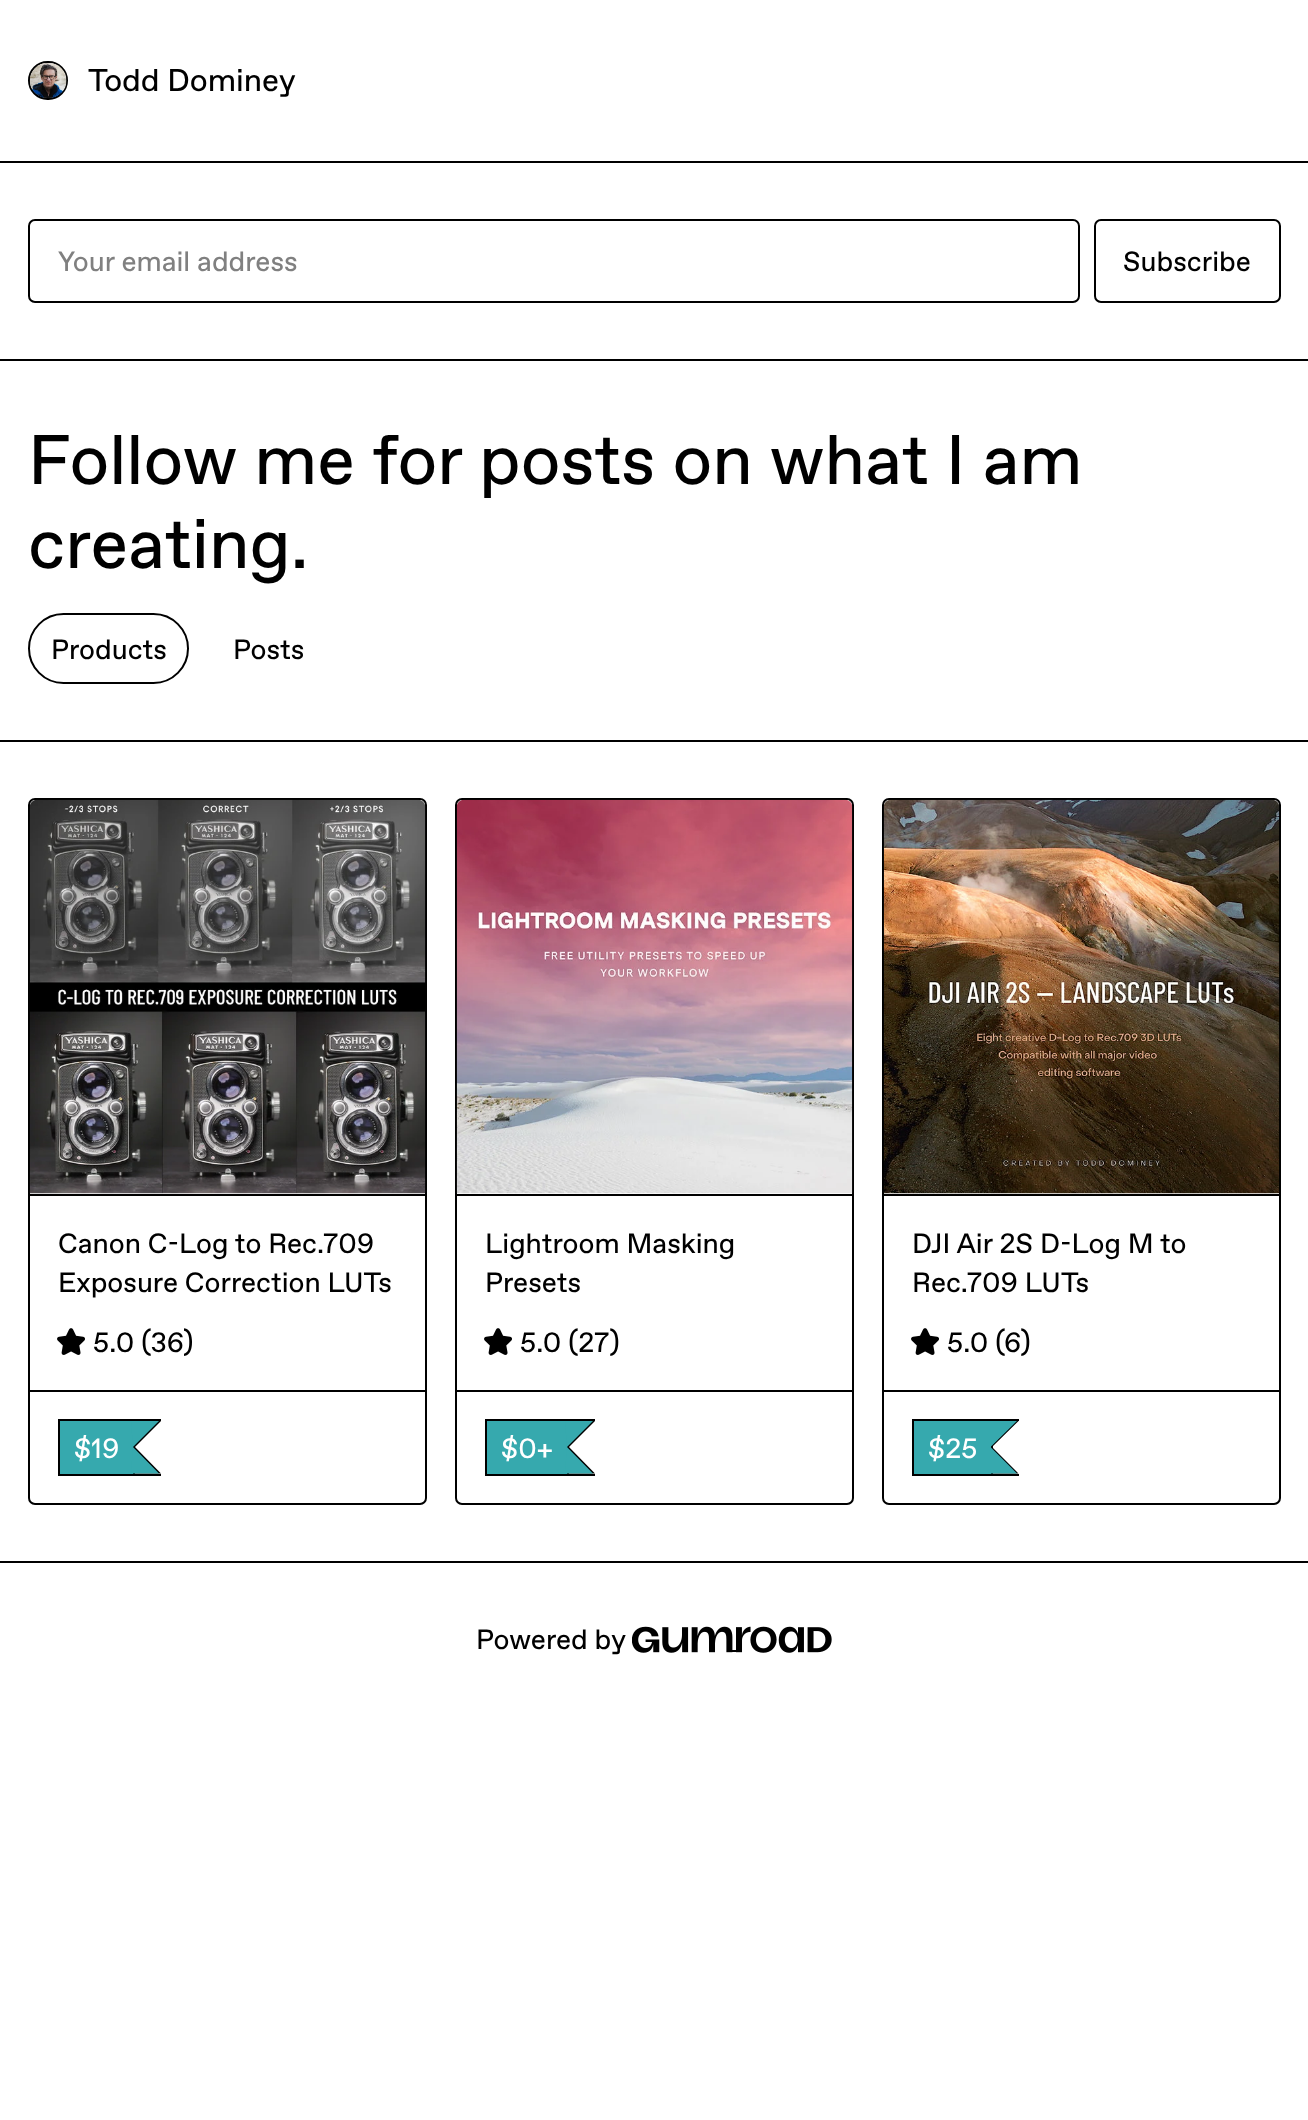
<svg xmlns="http://www.w3.org/2000/svg" width="1308" height="2120" viewBox="0 0 1308 2120">
  <rect width="100%" height="100%" fill="#ffffff"/>
  <rect x="0" y="161" width="1308" height="2" fill="#000000"/>
  <rect x="29" y="62" width="38" height="37" rx="18.5" fill="none" stroke="#000000" stroke-width="2"/>
  <image x="29" y="63" width="38" height="35" href="img1.png"/>
  <text x="88" y="91" font-family="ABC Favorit" font-size="31.5" fill="#000000">Todd Dominey</text>
  <rect x="0" y="359" width="1308" height="2" fill="#000000"/>
  <rect x="29" y="220" width="1050" height="82" rx="6" fill="none" stroke="#000000" stroke-width="2"/>
  <text x="58" y="271" font-family="ABC Favorit" font-size="28" fill="#808080">Your email address</text>
  <rect x="1095" y="220" width="185" height="82" rx="6" fill="none" stroke="#000000" stroke-width="2"/>
  <text x="1123" y="271" font-family="ABC Favorit" font-size="28" fill="#000000">Subscribe</text>
  <rect x="0" y="740" width="1308" height="2" fill="#000000"/>
  <text x="28" y="484" font-family="ABC Favorit" font-size="70" fill="#000000">Follow me for posts on what I am</text>
  <text x="28" y="568" font-family="ABC Favorit" font-size="70" fill="#000000">creating.</text>
  <rect x="29" y="614" width="159" height="69" rx="34.5" fill="none" stroke="#000000" stroke-width="2"/>
  <text x="51" y="659" font-family="ABC Favorit" font-size="28" fill="#000000">Products</text>
  <text x="233" y="659" font-family="ABC Favorit" font-size="28" fill="#000000">Posts</text>
  <rect x="0" y="1561" width="1308" height="2" fill="#000000"/>
  <rect x="29" y="799" width="397" height="705" rx="6" fill="none" stroke="#000000" stroke-width="2"/>
  <rect x="30" y="1194" width="395" height="2" fill="#000000"/>
  <image x="29" y="799" width="397" height="395" href="img2.png"/>
  <rect x="30" y="1390" width="395" height="2" fill="#000000"/>
  <text x="58" y="1253" font-family="ABC Favorit" font-size="28" fill="#000000">Canon C-Log to Rec.709</text>
  <text x="58" y="1292" font-family="ABC Favorit" font-size="28" fill="#000000">Exposure Correction LUTs</text>
  <image x="57" y="1328" width="28" height="27" href="img3.png"/>
  <text x="93" y="1352" font-family="ABC Favorit" font-size="28" fill="#000000">5.0 (36)</text>
  <rect x="58" y="1419" width="103" height="2" fill="#000000"/>
  <rect x="58" y="1474" width="103" height="2" fill="#000000"/>
  <rect x="58" y="1419" width="2" height="56" fill="#000000"/>
  <rect x="60" y="1421" width="73" height="53" fill="#36a9ae"/>
  <path d="M133 1421H161L135 1447ZM161 1473.5H133L135 1447Z" fill="#000000"/>
  <rect x="133" y="1445" width="2" height="29" fill="#000000"/>
  <path d="M131 1421H159L133 1447ZM159 1473.5H131L133 1447Z" fill="#36a9ae"/>
  <text x="74" y="1458" font-family="ABC Favorit" font-size="28" fill="#ffffff">$19</text>
  <rect x="456" y="799" width="397" height="705" rx="6" fill="none" stroke="#000000" stroke-width="2"/>
  <rect x="457" y="1194" width="395" height="2" fill="#000000"/>
  <image x="456" y="799" width="397" height="395" href="img4.png"/>
  <rect x="457" y="1390" width="395" height="2" fill="#000000"/>
  <text x="485" y="1253" font-family="ABC Favorit" font-size="28" fill="#000000">Lightroom Masking</text>
  <text x="485" y="1292" font-family="ABC Favorit" font-size="28" fill="#000000">Presets</text>
  <image x="484" y="1328" width="28" height="27" href="img3.png"/>
  <text x="520" y="1352" font-family="ABC Favorit" font-size="28" fill="#000000">5.0 (27)</text>
  <rect x="485" y="1419" width="110" height="2" fill="#000000"/>
  <rect x="485" y="1474" width="110" height="2" fill="#000000"/>
  <rect x="485" y="1419" width="2" height="56" fill="#000000"/>
  <rect x="487" y="1421" width="80" height="53" fill="#36a9ae"/>
  <path d="M567 1421H595L569 1447ZM595 1473.5H567L569 1447Z" fill="#000000"/>
  <rect x="567" y="1445" width="2" height="29" fill="#000000"/>
  <path d="M565 1421H593L567 1447ZM593 1473.5H565L567 1447Z" fill="#36a9ae"/>
  <text x="501" y="1458" font-family="ABC Favorit" font-size="28" fill="#ffffff">$0+</text>
  <rect x="883" y="799" width="397" height="705" rx="6" fill="none" stroke="#000000" stroke-width="2"/>
  <rect x="884" y="1194" width="395" height="2" fill="#000000"/>
  <image x="883" y="799" width="397" height="395" href="img5.png"/>
  <rect x="884" y="1390" width="395" height="2" fill="#000000"/>
  <text x="912" y="1253" font-family="ABC Favorit" font-size="28" fill="#000000">DJI Air 2S D-Log M to</text>
  <text x="912" y="1292" font-family="ABC Favorit" font-size="28" fill="#000000">Rec.709 LUTs</text>
  <image x="911" y="1328" width="28" height="27" href="img3.png"/>
  <text x="947" y="1352" font-family="ABC Favorit" font-size="28" fill="#000000">5.0 (6)</text>
  <rect x="912" y="1419" width="107" height="2" fill="#000000"/>
  <rect x="912" y="1474" width="107" height="2" fill="#000000"/>
  <rect x="912" y="1419" width="2" height="56" fill="#000000"/>
  <path d="M990.5 1421H1018.5L992 1447ZM1018.5 1473.5H990.5L992 1447Z" fill="#000000"/>
  <rect x="991" y="1444" width="2" height="30" fill="#000000"/>
  <path d="M989 1421H1017L990.5 1447ZM1017 1473.5H989L990.5 1447Z" fill="#36a9ae"/>
  <rect x="989" y="1421" width="2" height="53" fill="#36a9ae"/>
  <rect x="914" y="1421" width="75" height="53" fill="#36a9ae"/>
  <text x="928" y="1458" font-family="ABC Favorit" font-size="28" fill="#ffffff">$25</text>
  <text x="476" y="1649" font-family="ABC Favorit" font-size="28" fill="#000000">Powered by</text>
  <image x="632" y="1626" width="200" height="27" href="img6.png"/>
  <rect x="730" y="1650" width="7" height="2" fill="#000000"/>
</svg>
